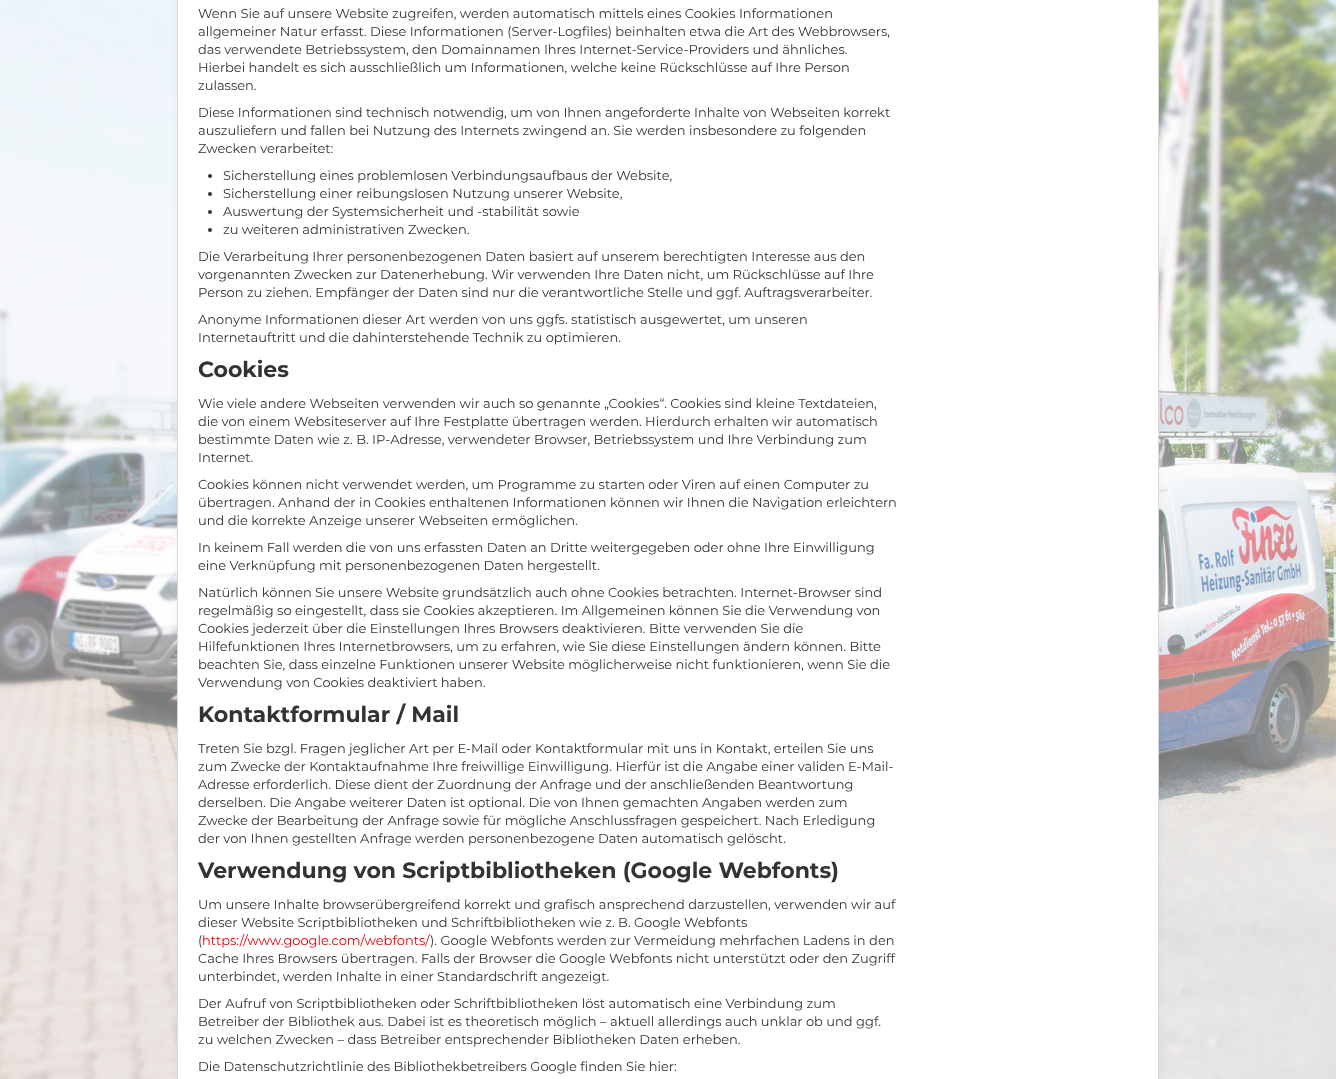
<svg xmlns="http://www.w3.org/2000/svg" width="1336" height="1079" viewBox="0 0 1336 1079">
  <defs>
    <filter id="blur1" x="-50%" y="-200%" width="200%" height="500%"><feGaussianBlur stdDeviation="3"/></filter>
  </defs>
  <rect width="100%" height="100%" fill="#ffffff"/>
  <image x="0" y="0" width="1336" height="1079" href="img1.png"/>
  <rect x="177" y="-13" width="982" height="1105" rx="4" fill="#000000" fill-opacity="0.05" filter="url(#blur1)"/>
  <rect x="177.5" y="-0.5" width="981" height="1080" fill="#ffffff" stroke="#d9d9d9"/>
  <text x="198" y="18" font-family="Montserrat" font-size="13" fill="#333333">Wenn Sie auf unsere Website zugreifen, werden automatisch mittels eines Cookies Informationen</text>
  <text x="198" y="36" font-family="Montserrat" font-size="13" fill="#333333">allgemeiner Natur erfasst. Diese Informationen (Server-Logfiles) beinhalten etwa die Art des Webbrowsers,</text>
  <text x="198" y="54" font-family="Montserrat" font-size="13" fill="#333333">das verwendete Betriebssystem, den Domainnamen Ihres Internet-Service-Providers und ähnliches.</text>
  <text x="198" y="72" font-family="Montserrat" font-size="13" fill="#333333">Hierbei handelt es sich ausschließlich um Informationen, welche keine Rückschlüsse auf Ihre Person</text>
  <text x="198" y="90" font-family="Montserrat" font-size="13" fill="#333333">zulassen.</text>
  <text x="198" y="117" font-family="Montserrat" font-size="13" fill="#333333">Diese Informationen sind technisch notwendig, um von Ihnen angeforderte Inhalte von Webseiten korrekt</text>
  <text x="198" y="135" font-family="Montserrat" font-size="13" fill="#333333">auszuliefern und fallen bei Nutzung des Internets zwingend an. Sie werden insbesondere zu folgenden</text>
  <text x="198" y="153" font-family="Montserrat" font-size="13" fill="#333333">Zwecken verarbeitet:</text>
  <circle cx="210" cy="176" r="2" fill="#333333"/>
  <text x="223" y="180" font-family="Montserrat" font-size="13" fill="#333333">Sicherstellung eines problemlosen Verbindungsaufbaus der Website,</text>
  <circle cx="210" cy="194" r="2" fill="#333333"/>
  <text x="223" y="198" font-family="Montserrat" font-size="13" fill="#333333">Sicherstellung einer reibungslosen Nutzung unserer Website,</text>
  <circle cx="210" cy="212" r="2" fill="#333333"/>
  <text x="223" y="216" font-family="Montserrat" font-size="13" fill="#333333">Auswertung der Systemsicherheit und -stabilität sowie</text>
  <circle cx="210" cy="230" r="2" fill="#333333"/>
  <text x="223" y="234" font-family="Montserrat" font-size="13" fill="#333333">zu weiteren administrativen Zwecken.</text>
  <text x="198" y="261" font-family="Montserrat" font-size="13" fill="#333333">Die Verarbeitung Ihrer personenbezogenen Daten basiert auf unserem berechtigten Interesse aus den</text>
  <text x="198" y="279" font-family="Montserrat" font-size="13" fill="#333333">vorgenannten Zwecken zur Datenerhebung. Wir verwenden Ihre Daten nicht, um Rückschlüsse auf Ihre</text>
  <text x="198" y="297" font-family="Montserrat" font-size="13" fill="#333333">Person zu ziehen. Empfänger der Daten sind nur die verantwortliche Stelle und ggf. Auftragsverarbeiter.</text>
  <text x="198" y="324" font-family="Montserrat" font-size="13" fill="#333333">Anonyme Informationen dieser Art werden von uns ggfs. statistisch ausgewertet, um unseren</text>
  <text x="198" y="342" font-family="Montserrat" font-size="13" fill="#333333">Internetauftritt und die dahinterstehende Technik zu optimieren.</text>
  <text x="198" y="377" font-family="Montserrat" font-size="22" font-weight="bold" fill="#333333">Cookies</text>
  <text x="198" y="408" font-family="Montserrat" font-size="13" fill="#333333">Wie viele andere Webseiten verwenden wir auch so genannte „Cookies“. Cookies sind kleine Textdateien,</text>
  <text x="198" y="426" font-family="Montserrat" font-size="13" fill="#333333">die von einem Websiteserver auf Ihre Festplatte übertragen werden. Hierdurch erhalten wir automatisch</text>
  <text x="198" y="444" font-family="Montserrat" font-size="13" fill="#333333">bestimmte Daten wie z. B. IP-Adresse, verwendeter Browser, Betriebssystem und Ihre Verbindung zum</text>
  <text x="198" y="462" font-family="Montserrat" font-size="13" fill="#333333">Internet.</text>
  <text x="198" y="489" font-family="Montserrat" font-size="13" fill="#333333">Cookies können nicht verwendet werden, um Programme zu starten oder Viren auf einen Computer zu</text>
  <text x="198" y="507" font-family="Montserrat" font-size="13" fill="#333333">übertragen. Anhand der in Cookies enthaltenen Informationen können wir Ihnen die Navigation erleichtern</text>
  <text x="198" y="525" font-family="Montserrat" font-size="13" fill="#333333">und die korrekte Anzeige unserer Webseiten ermöglichen.</text>
  <text x="198" y="552" font-family="Montserrat" font-size="13" fill="#333333">In keinem Fall werden die von uns erfassten Daten an Dritte weitergegeben oder ohne Ihre Einwilligung</text>
  <text x="198" y="570" font-family="Montserrat" font-size="13" fill="#333333">eine Verknüpfung mit personenbezogenen Daten hergestellt.</text>
  <text x="198" y="597" font-family="Montserrat" font-size="13" fill="#333333">Natürlich können Sie unsere Website grundsätzlich auch ohne Cookies betrachten. Internet-Browser sind</text>
  <text x="198" y="615" font-family="Montserrat" font-size="13" fill="#333333">regelmäßig so eingestellt, dass sie Cookies akzeptieren. Im Allgemeinen können Sie die Verwendung von</text>
  <text x="198" y="633" font-family="Montserrat" font-size="13" fill="#333333">Cookies jederzeit über die Einstellungen Ihres Browsers deaktivieren. Bitte verwenden Sie die</text>
  <text x="198" y="651" font-family="Montserrat" font-size="13" fill="#333333">Hilfefunktionen Ihres Internetbrowsers, um zu erfahren, wie Sie diese Einstellungen ändern können. Bitte</text>
  <text x="198" y="669" font-family="Montserrat" font-size="13" fill="#333333">beachten Sie, dass einzelne Funktionen unserer Website möglicherweise nicht funktionieren, wenn Sie die</text>
  <text x="198" y="687" font-family="Montserrat" font-size="13" fill="#333333">Verwendung von Cookies deaktiviert haben.</text>
  <text x="198" y="722" font-family="Montserrat" font-size="22" font-weight="bold" fill="#333333">Kontaktformular / Mail</text>
  <text x="198" y="753" font-family="Montserrat" font-size="13" fill="#333333">Treten Sie bzgl. Fragen jeglicher Art per E-Mail oder Kontaktformular mit uns in Kontakt, erteilen Sie uns</text>
  <text x="198" y="771" font-family="Montserrat" font-size="13" fill="#333333">zum Zwecke der Kontaktaufnahme Ihre freiwillige Einwilligung. Hierfür ist die Angabe einer validen E-Mail-</text>
  <text x="198" y="789" font-family="Montserrat" font-size="13" fill="#333333">Adresse erforderlich. Diese dient der Zuordnung der Anfrage und der anschließenden Beantwortung</text>
  <text x="198" y="807" font-family="Montserrat" font-size="13" fill="#333333">derselben. Die Angabe weiterer Daten ist optional. Die von Ihnen gemachten Angaben werden zum</text>
  <text x="198" y="825" font-family="Montserrat" font-size="13" fill="#333333">Zwecke der Bearbeitung der Anfrage sowie für mögliche Anschlussfragen gespeichert. Nach Erledigung</text>
  <text x="198" y="843" font-family="Montserrat" font-size="13" fill="#333333">der von Ihnen gestellten Anfrage werden personenbezogene Daten automatisch gelöscht.</text>
  <text x="198" y="878" font-family="Montserrat" font-size="22" font-weight="bold" fill="#333333">Verwendung von Scriptbibliotheken (Google Webfonts)</text>
  <text x="198" y="909" font-family="Montserrat" font-size="13" fill="#333333">Um unsere Inhalte browserübergreifend korrekt und grafisch ansprechend darzustellen, verwenden wir auf</text>
  <text x="198" y="927" font-family="Montserrat" font-size="13" fill="#333333">dieser Website Scriptbibliotheken und Schriftbibliotheken wie z. B. Google Webfonts</text>
  <text x="198" y="945" font-family="Montserrat" font-size="13" fill="#333333">(</text>
  <text x="202" y="945" font-family="Montserrat" font-size="13" fill="#e3000b">https://www.google.com/webfonts/</text>
  <text x="430" y="945" font-family="Montserrat" font-size="13" fill="#333333">). Google Webfonts werden zur Vermeidung mehrfachen Ladens in den</text>
  <text x="198" y="963" font-family="Montserrat" font-size="13" fill="#333333">Cache Ihres Browsers übertragen. Falls der Browser die Google Webfonts nicht unterstützt oder den Zugriff</text>
  <text x="198" y="981" font-family="Montserrat" font-size="13" fill="#333333">unterbindet, werden Inhalte in einer Standardschrift angezeigt.</text>
  <text x="198" y="1008" font-family="Montserrat" font-size="13" fill="#333333">Der Aufruf von Scriptbibliotheken oder Schriftbibliotheken löst automatisch eine Verbindung zum</text>
  <text x="198" y="1026" font-family="Montserrat" font-size="13" fill="#333333">Betreiber der Bibliothek aus. Dabei ist es theoretisch möglich – aktuell allerdings auch unklar ob und ggf.</text>
  <text x="198" y="1044" font-family="Montserrat" font-size="13" fill="#333333">zu welchen Zwecken – dass Betreiber entsprechender Bibliotheken Daten erheben.</text>
  <text x="198" y="1071" font-family="Montserrat" font-size="13" fill="#333333">Die Datenschutzrichtlinie des Bibliothekbetreibers Google finden Sie hier:</text>
</svg>
